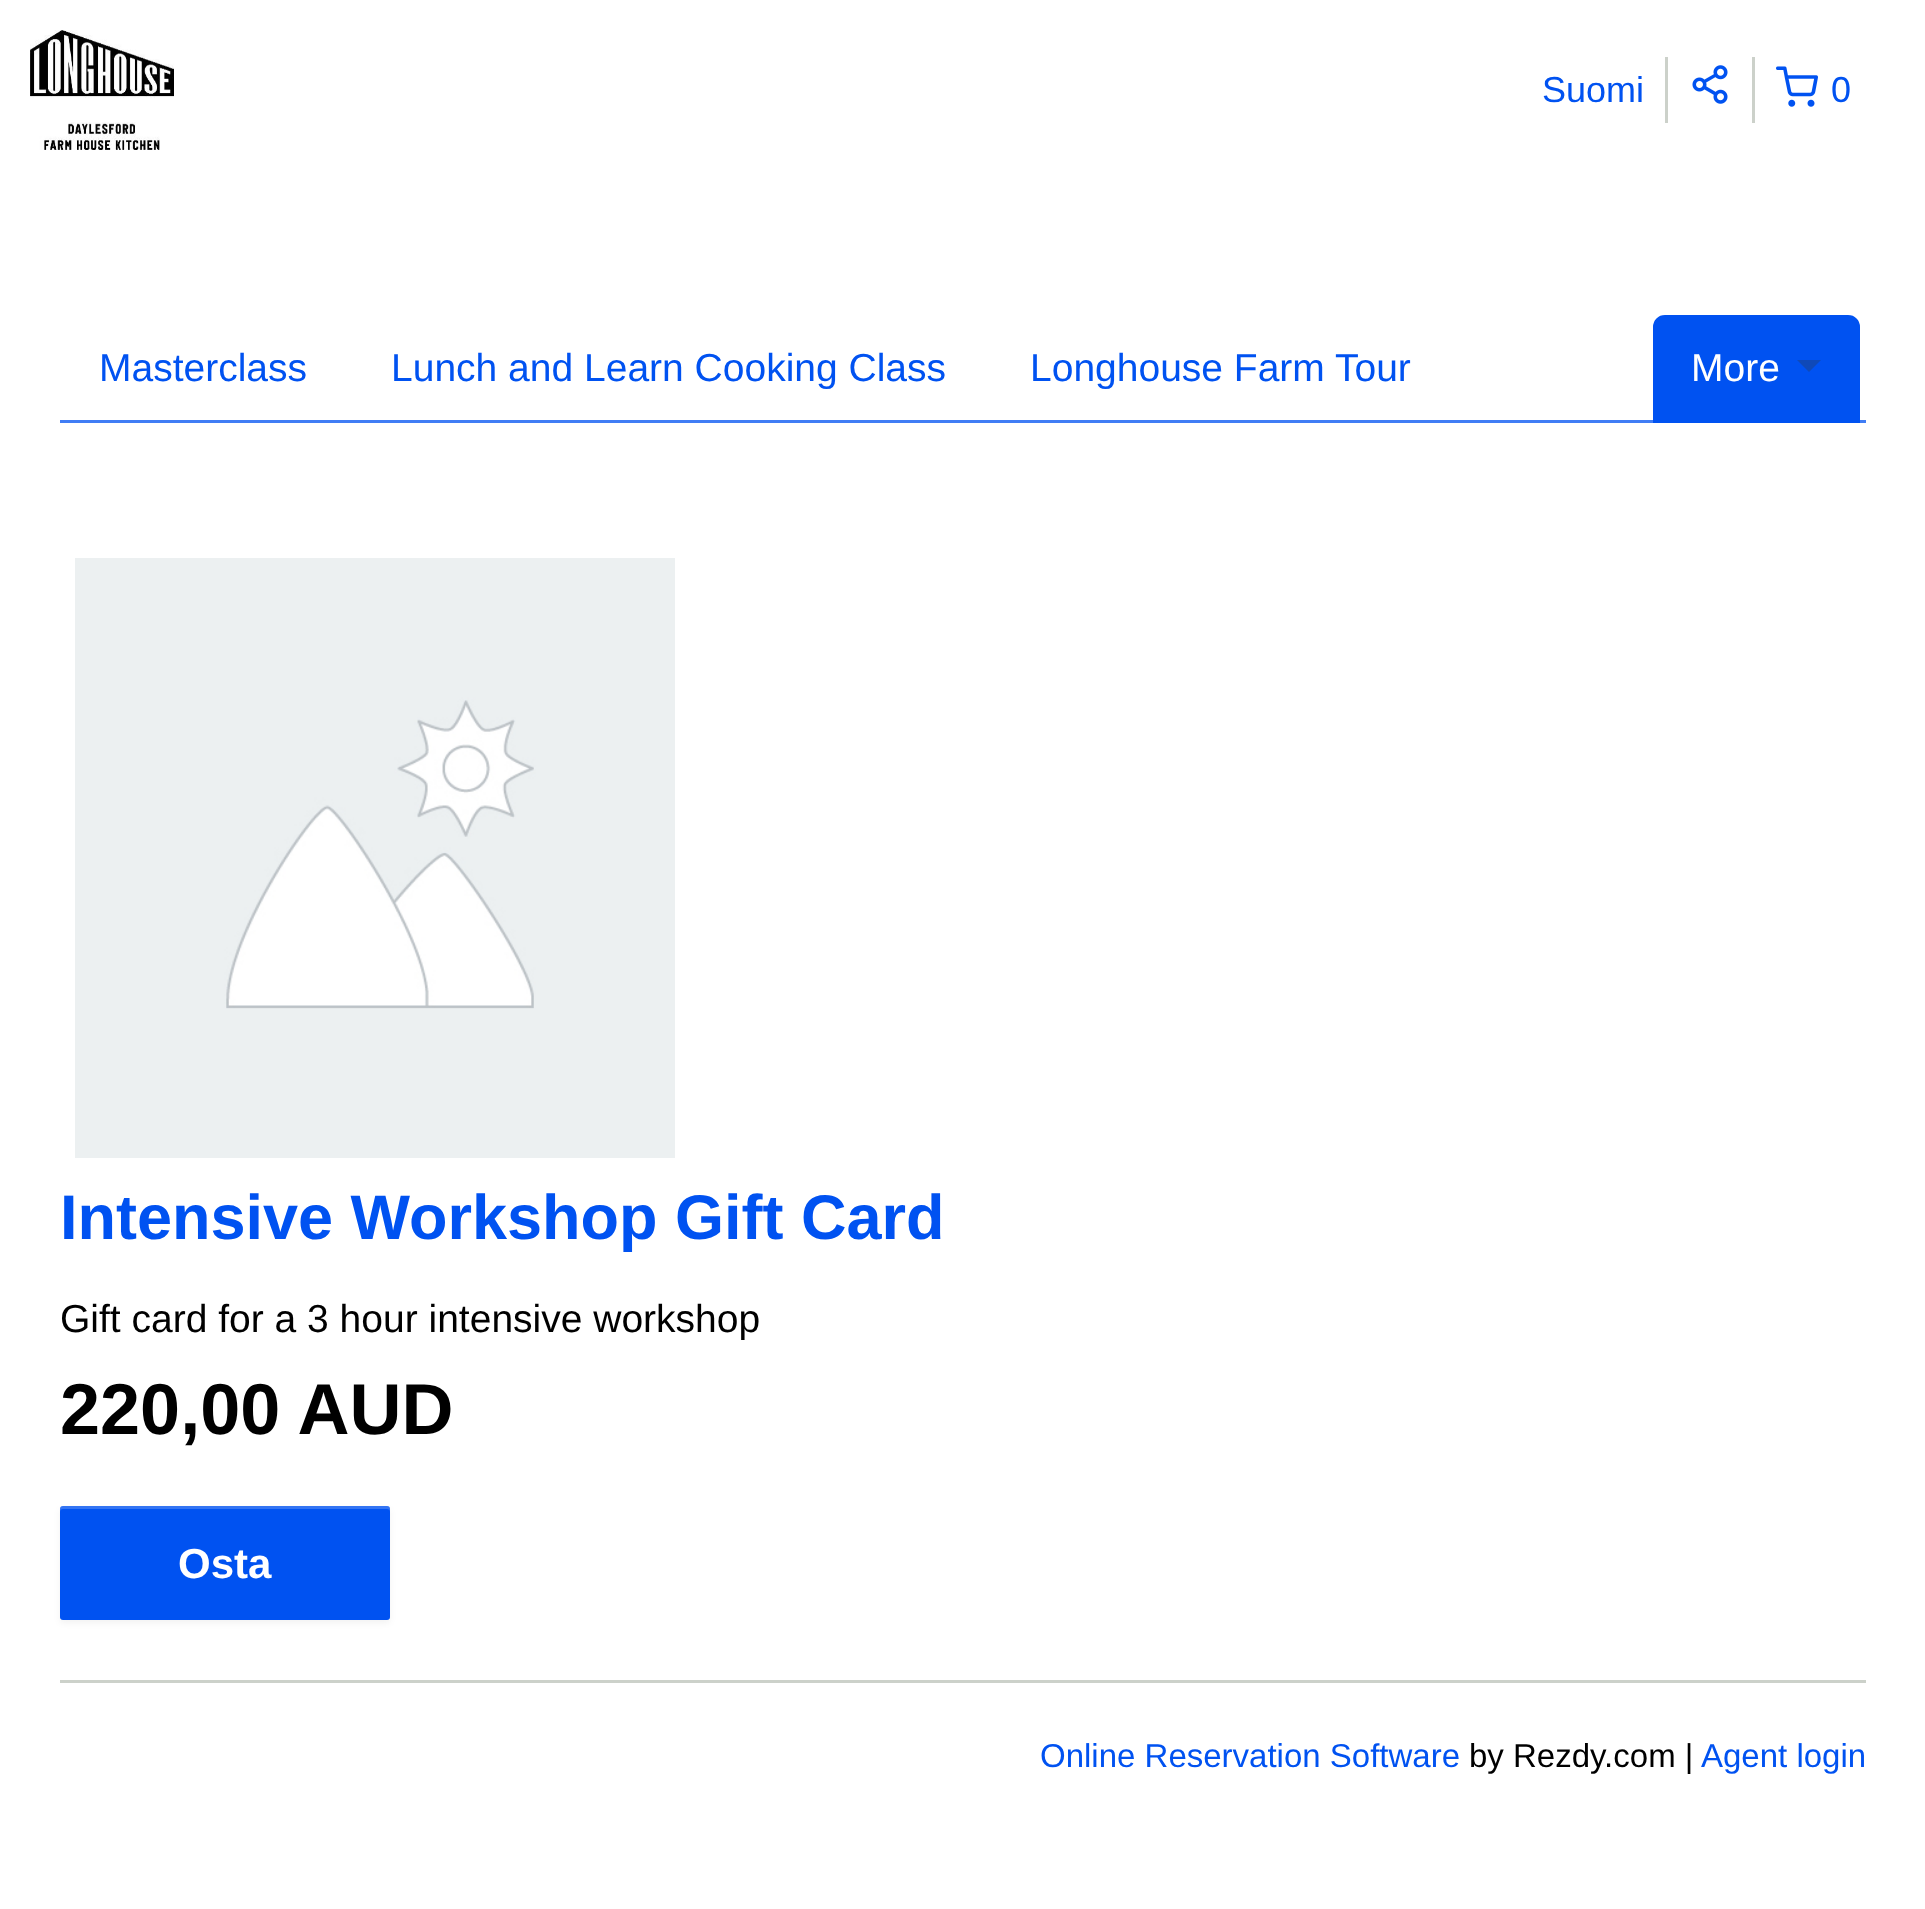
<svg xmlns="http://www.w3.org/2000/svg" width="1925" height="1909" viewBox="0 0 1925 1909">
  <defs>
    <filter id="blur1" x="-50%" y="-200%" width="200%" height="500%"><feGaussianBlur stdDeviation="3"/></filter>
  </defs>
  <rect width="100%" height="100%" fill="#ffffff"/>
  <image x="30" y="30" width="144" height="120" href="img1.png"/>
  <rect x="1665" y="57" width="3" height="66" fill="#ccd1ca"/>
  <text x="1542" y="102" font-family="Liberation Sans" font-size="36" fill="#0052f1">Suomi</text>
  <rect x="1752" y="57" width="3" height="66" fill="#ccd1ca"/>
  <image x="1692" y="65" width="36" height="39" href="img2.png"/>
  <image x="1776" y="66" width="42" height="41" href="img3.png"/>
  <text x="1831" y="102" font-family="Liberation Sans" font-size="36" fill="#0052f1">0</text>
  <rect x="60" y="420" width="1806" height="3" fill="#407df5"/>
  <text x="99" y="381" font-family="Liberation Sans" font-size="39" fill="#0052f1">Masterclass</text>
  <text x="391" y="381" font-family="Liberation Sans" font-size="39" fill="#0052f1">Lunch and Learn Cooking Class</text>
  <text x="1030" y="381" font-family="Liberation Sans" font-size="39" fill="#0052f1">Longhouse Farm Tour</text>
  <path d="M1665 316.5H1848C1854 316.5 1858.5 321 1858.5 327V421.5H1654.5V327C1654.5 321 1659 316.5 1665 316.5Z" fill="#0052f1" stroke="#0052f1" stroke-width="3"/>
  <text x="1691" y="381" font-family="Liberation Sans" font-size="39" fill="#ffffff">More</text>
  <path d="M1797 360H1821L1809 372Z" fill="#0f49b8"/>
  <rect x="60" y="1680" width="1806" height="3" fill="#ccd1ca"/>
  <image x="75" y="558" width="600" height="600" href="img4.png"/>
  <text x="60" y="1239" font-family="Liberation Sans" font-size="63" font-weight="bold" fill="#0052f1">Intensive Workshop Gift Card</text>
  <text x="60" y="1332" font-family="Liberation Sans" font-size="39" fill="#000000">Gift card for a 3 hour intensive workshop</text>
  <text x="60" y="1434" font-family="Liberation Sans" font-size="72" font-weight="bold" fill="#000000">220,00 AUD</text>
  <rect x="60" y="1509" width="330" height="114" rx="3" fill="#000000" fill-opacity="0.05" filter="url(#blur1)"/>
  <rect x="60" y="1506" width="330" height="114" rx="3" fill="#0052f1"/>
  <path d="M63 1509H387C389 1509 390 1510 390 1512V1509C390 1507 389 1506 387 1506H63C61 1506 60 1507 60 1509V1512C60 1510 61 1509 63 1509Z" fill="#ffffff" fill-opacity="0.2"/>
  <text x="178" y="1578" font-family="Liberation Sans" font-size="42" font-weight="bold" fill="#ffffff">Osta</text>
  <text x="1040" y="1767" font-family="Liberation Sans" font-size="33" fill="#0052f1">Online Reservation Software</text>
  <text x="1469" y="1767" font-family="Liberation Sans" font-size="33" fill="#000000">by Rezdy.com |</text>
  <text x="1701" y="1767" font-family="Liberation Sans" font-size="33" fill="#0052f1">Agent login</text>
</svg>
